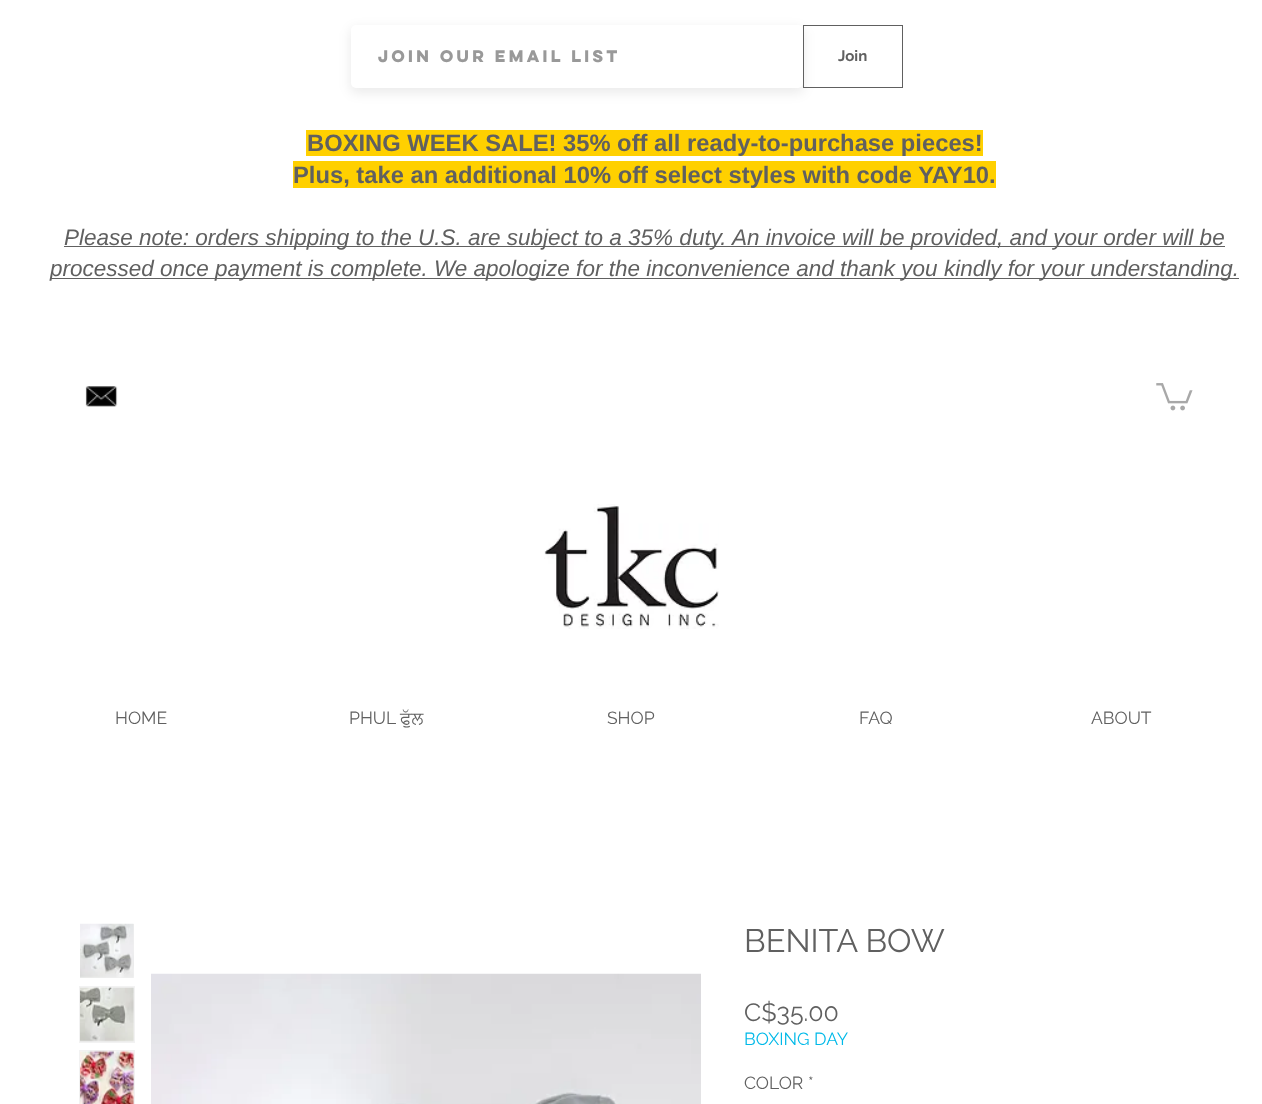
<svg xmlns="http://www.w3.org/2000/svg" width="1262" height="1104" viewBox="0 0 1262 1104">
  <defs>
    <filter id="blur1" x="-50%" y="-200%" width="200%" height="500%"><feGaussianBlur stdDeviation="6"/></filter>
    <clipPath id="clip1"><rect x="378" y="45" width="421" height="23"/></clipPath>
  </defs>
  <rect width="100%" height="100%" fill="#ffffff"/>
  <rect x="350" y="28" width="454" height="65" rx="6" fill="#000000" fill-opacity="0.08" filter="url(#blur1)"/>
  <rect x="351" y="25" width="452" height="63" rx="5" fill="#ffffff"/>
  <g clip-path="url(#clip1)">
    <text x="378" y="62" font-family="'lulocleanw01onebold'" font-size="15" font-weight="bold" fill="#999999">Join our EMAIL list</text>
  </g>
  <rect x="803.5" y="25.5" width="99" height="62" fill="none" stroke="#606060"/>
  <text x="838" y="61" font-family="Raleway" font-size="15" font-weight="bold" fill="#606060">Join</text>
  <rect x="306" y="130" width="677" height="26" fill="#ffd000"/>
  <text x="307" y="151" font-family="Liberation Sans" font-size="23.75" font-weight="bold" fill="#606060">BOXING WEEK SALE! 35% off all ready-to-purchase pieces!</text>
  <rect x="293" y="161" width="703" height="27" fill="#ffd000"/>
  <text x="293" y="183" font-family="Liberation Sans" font-size="23.75" font-weight="bold" fill="#606060">Plus, take an additional 10% off select styles with code YAY10.</text>
  <rect x="64" y="246" width="1161" height="1" fill="#606060"/>
  <text x="64" y="245" font-family="Liberation Sans" font-size="22.5" font-style="italic" fill="#606060">Please note: orders shipping to the U.S. are subject to a 35% duty. An invoice will be provided, and your order will be</text>
  <rect x="50" y="278" width="1189" height="1" fill="#606060"/>
  <text x="50" y="276" font-family="Liberation Sans" font-size="22.5" font-style="italic" fill="#606060">processed once payment is complete. We apologize for the inconvenience and thank you kindly for your understanding.</text>
  <image x="85" y="386" width="33" height="21" href="img1.png"/>
  <image x="1156" y="383" width="37" height="28" href="img2.png"/>
  <image x="544" y="504" width="175" height="125" href="img3.png"/>
  <text x="115" y="724" font-family="Raleway" font-size="17.5" fill="#606060">HOME</text>
  <text x="349" y="724" font-family="Raleway" font-size="17.5" fill="#606060">PHUL</text>
  <text x="400" y="724" font-family="FreeSans" font-size="17.5" fill="#606060">ਫੁੱਲ</text>
  <text x="607" y="724" font-family="Raleway" font-size="17.5" fill="#606060">SHOP</text>
  <text x="859" y="724" font-family="Raleway" font-size="17.5" fill="#606060">FAQ</text>
  <text x="1091" y="724" font-family="Raleway" font-size="17.5" fill="#606060">ABOUT</text>
  <rect x="80" y="924" width="54" height="54" fill="#f2f2f2"/>
  <image x="80" y="923" width="54" height="55" href="img4.png"/>
  <rect x="79" y="986" width="56" height="57" fill="#f2f2f2"/>
  <image x="80" y="987" width="54" height="55" href="img5.png"/>
  <rect x="79" y="1050" width="56" height="54" fill="#f2f2f2"/>
  <image x="80" y="1050" width="54" height="54" href="img6.png"/>
  <image x="151" y="973" width="550" height="131" href="img7.png"/>
  <text x="744" y="952" font-family="Raleway" font-size="32.5" fill="#606060">BENITA BOW</text>
  <text x="744" y="1021" font-family="Raleway" font-size="25" fill="#606060">C$35.00</text>
  <text x="744" y="1045" font-family="Raleway" font-size="17.5" fill="#00b9e8">BOXING DAY</text>
  <text x="744" y="1089" font-family="Raleway" font-size="17.5" fill="#606060">COLOR</text>
  <text x="808" y="1089" font-family="Raleway" font-size="17.5" fill="#606060">*</text>
</svg>
